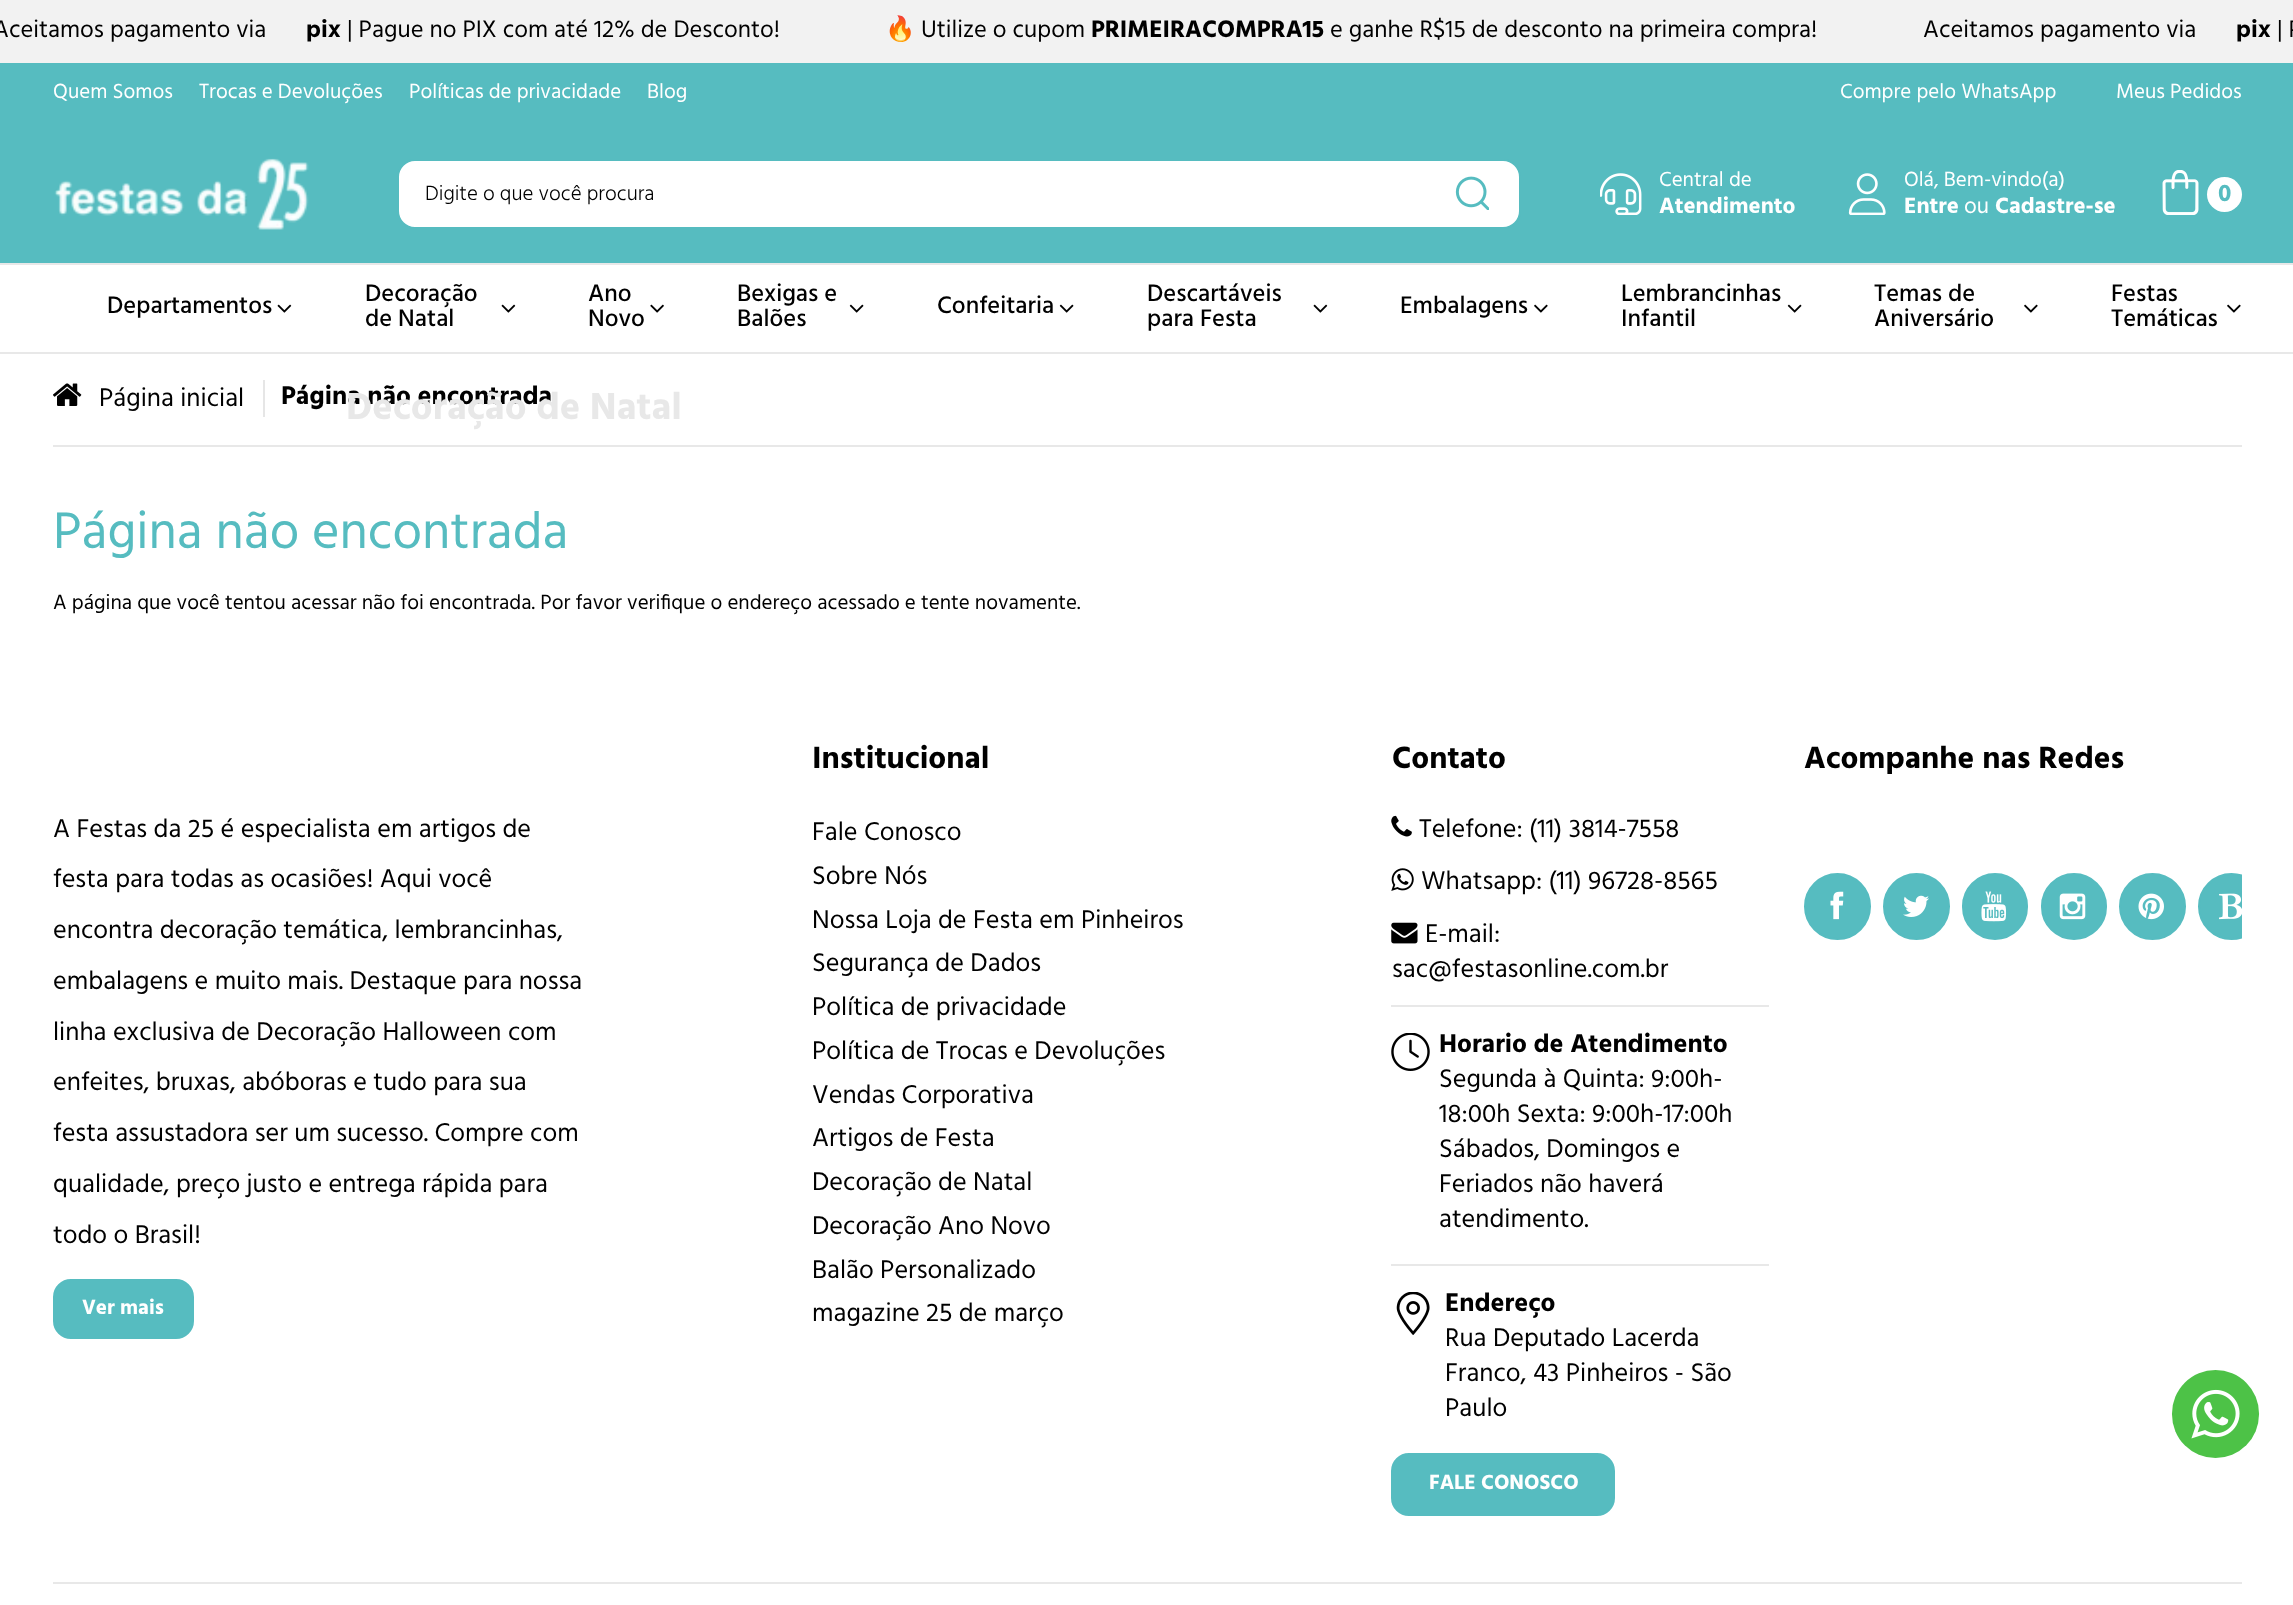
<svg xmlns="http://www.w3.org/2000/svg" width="2293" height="1605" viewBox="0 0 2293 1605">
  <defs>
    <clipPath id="clip1"><rect x="1804" y="735" width="438" height="798"/></clipPath>
  </defs>
  <rect width="100%" height="100%" fill="#ffffff"/>
  <rect x="0" y="0" width="2293" height="63" fill="#f2f2f2"/>
  <text x="-7" y="37" font-family="Hind" font-size="24.5" fill="#000000">Aceitamos pagamento via</text>
  <text x="306" y="37" font-family="Hind" font-size="24.5" font-weight="bold" fill="#000000">pix</text>
  <text x="347" y="37" font-family="Hind" font-size="24.5" fill="#000000">| Pague no PIX com até 12% de Desconto!</text>
  <text x="885" y="37" font-family="Noto Color Emoji" font-size="24.5" fill="#000000">🔥</text>
  <text x="921" y="37" font-family="Hind" font-size="24.5" fill="#000000">Utilize o cupom</text>
  <text x="1091" y="37" font-family="Hind" font-size="24.5" font-weight="bold" fill="#000000">PRIMEIRACOMPRA15</text>
  <text x="1330" y="37" font-family="Hind" font-size="24.5" fill="#000000">e ganhe R$15 de desconto na primeira compra!</text>
  <text x="1923" y="37" font-family="Hind" font-size="24.5" fill="#000000">Aceitamos pagamento via</text>
  <text x="2236" y="37" font-family="Hind" font-size="24.5" font-weight="bold" fill="#000000">pix</text>
  <text x="2277" y="37" font-family="Hind" font-size="24.5" fill="#000000">| P</text>
  <rect x="0" y="63" width="2293" height="200" fill="#56bcc0"/>
  <text x="53" y="98" font-family="Hind" font-size="21" fill="#ffffff">Quem Somos</text>
  <text x="199" y="98" font-family="Hind" font-size="21" fill="#ffffff">Trocas e Devoluções</text>
  <text x="409" y="98" font-family="Hind" font-size="21" fill="#ffffff">Políticas de privacidade</text>
  <text x="647" y="98" font-family="Hind" font-size="21" fill="#ffffff">Blog</text>
  <text x="1840" y="98" font-family="Hind" font-size="21" fill="#ffffff">Compre pelo WhatsApp</text>
  <text x="2116" y="98" font-family="Hind" font-size="21" fill="#ffffff">Meus Pedidos</text>
  <image x="54" y="158" width="255" height="72" href="img1.png"/>
  <rect x="398" y="160" width="1122" height="68" rx="17" fill="#ffffff" stroke="#56bcc0" stroke-width="2"/>
  <text x="425" y="200" font-family="Hind" font-size="21" font-weight="300" fill="#000000">Digite o que você procura</text>
  <image x="1455" y="176" width="34" height="34" href="img2.png"/>
  <image x="1600" y="173" width="42" height="42" href="img3.png"/>
  <text x="1659" y="186" font-family="Hind" font-size="21" fill="#ffffff">Central de</text>
  <text x="1659" y="213" font-family="Hind" font-size="22.75" font-weight="bold" fill="#ffffff">Atendimento</text>
  <image x="1848" y="173" width="38" height="42" href="img4.png"/>
  <text x="1904" y="186" font-family="Hind" font-size="21" fill="#ffffff">Olá, Bem-vindo(a)</text>
  <text x="1904" y="213" font-family="Hind" font-size="22.75" font-weight="bold" fill="#ffffff">Entre</text>
  <text x="1964" y="213" font-family="Hind" font-size="22.75" fill="#ffffff">ou</text>
  <text x="1995" y="213" font-family="Hind" font-size="22.75" font-weight="bold" fill="#ffffff">Cadastre-se</text>
  <image x="2162" y="170" width="37" height="45" href="img5.png"/>
  <circle cx="2224.5" cy="194.5" r="17.5" fill="#ffffff"/>
  <text x="2218" y="201" font-family="Hind" font-size="24.5" font-weight="bold" fill="#56bcc0">0</text>
  <rect x="0" y="263" width="2293" height="2" fill="#e8e8e8"/>
  <rect x="0" y="352" width="2293" height="2" fill="#e8e8e8"/>
  <text x="365" y="301" font-family="Hind" font-size="24.5" font-weight="500" fill="#000000">Decoração</text>
  <text x="365" y="326" font-family="Hind" font-size="24.5" font-weight="500" fill="#000000">de Natal</text>
  <image x="501" y="304" width="15" height="9" href="img6.png"/>
  <text x="281" y="404" font-family="Hind" font-size="26.25" font-weight="bold" fill="#000000">Página não encontrada</text>
  <text x="346" y="419" font-family="Hind" font-size="38.5" font-weight="bold" fill="#e8e8e8">Decoração de Natal</text>
  <text x="737" y="301" font-family="Hind" font-size="24.5" font-weight="500" fill="#000000">Bexigas e</text>
  <text x="737" y="326" font-family="Hind" font-size="24.5" font-weight="500" fill="#000000">Balões</text>
  <image x="849" y="304" width="15" height="9" href="img7.png"/>
  <text x="1147" y="301" font-family="Hind" font-size="24.5" font-weight="500" fill="#000000">Descartáveis</text>
  <text x="1147" y="326" font-family="Hind" font-size="24.5" font-weight="500" fill="#000000">para Festa</text>
  <image x="1313" y="304" width="15" height="9" href="img6.png"/>
  <text x="1621" y="301" font-family="Hind" font-size="24.5" font-weight="500" fill="#000000">Lembrancinhas</text>
  <text x="1621" y="326" font-family="Hind" font-size="24.5" font-weight="500" fill="#000000">Infantil</text>
  <image x="1787" y="304" width="15" height="9" href="img7.png"/>
  <text x="1874" y="301" font-family="Hind" font-size="24.5" font-weight="500" fill="#000000">Temas de</text>
  <text x="1874" y="326" font-family="Hind" font-size="24.5" font-weight="500" fill="#000000">Aniversário</text>
  <image x="2024" y="304" width="14" height="9" href="img8.png"/>
  <text x="107" y="313" font-family="Hind" font-size="24.5" font-weight="500" fill="#000000">Departamentos</text>
  <image x="277" y="304" width="15" height="9" href="img6.png"/>
  <text x="588" y="301" font-family="Hind" font-size="24.5" font-weight="500" fill="#000000">Ano</text>
  <text x="588" y="326" font-family="Hind" font-size="24.5" font-weight="500" fill="#000000">Novo</text>
  <image x="650" y="304" width="14" height="9" href="img9.png"/>
  <text x="937" y="313" font-family="Hind" font-size="24.5" font-weight="500" fill="#000000">Confeitaria</text>
  <image x="1059" y="304" width="15" height="9" href="img7.png"/>
  <text x="1400" y="313" font-family="Hind" font-size="24.5" font-weight="500" fill="#000000">Embalagens</text>
  <image x="1534" y="304" width="14" height="9" href="img8.png"/>
  <text x="2111" y="301" font-family="Hind" font-size="24.5" font-weight="500" fill="#000000">Festas</text>
  <text x="2111" y="326" font-family="Hind" font-size="24.5" font-weight="500" fill="#000000">Temáticas</text>
  <image x="2227" y="304" width="14" height="9" href="img8.png"/>
  <rect x="53" y="445" width="2189" height="2" fill="#e8e8e8"/>
  <image x="53" y="383" width="29" height="23" href="img10.png"/>
  <text x="99" y="406" font-family="Hind" font-size="26.25" fill="#000000">Página inicial</text>
  <rect x="263" y="380" width="2" height="37" fill="#e6e6e6"/>
  <text x="53" y="548" font-family="Hind" font-size="52.5" fill="#56bcc0">Página não encontrada</text>
  <text x="53" y="609" font-family="Hind" font-size="21" fill="#000000">A página que você tentou acessar não foi encontrada. Por favor verifique o endereço acessado e tente novamente.</text>
  <text x="53" y="837" font-family="Hind" font-size="26.25" fill="#000000">A Festas da 25 é especialista em artigos de</text>
  <text x="53" y="887" font-family="Hind" font-size="26.25" fill="#000000">festa para todas as ocasiões! Aqui você</text>
  <text x="53" y="938" font-family="Hind" font-size="26.25" fill="#000000">encontra decoração temática, lembrancinhas,</text>
  <text x="53" y="989" font-family="Hind" font-size="26.25" fill="#000000">embalagens e muito mais. Destaque para nossa</text>
  <text x="53" y="1040" font-family="Hind" font-size="26.25" fill="#000000">linha exclusiva de Decoração Halloween com</text>
  <text x="53" y="1090" font-family="Hind" font-size="26.25" fill="#000000">enfeites, bruxas, abóboras e tudo para sua</text>
  <text x="53" y="1141" font-family="Hind" font-size="26.25" fill="#000000">festa assustadora ser um sucesso. Compre com</text>
  <text x="53" y="1192" font-family="Hind" font-size="26.25" fill="#000000">qualidade, preço justo e entrega rápida para</text>
  <text x="53" y="1243" font-family="Hind" font-size="26.25" fill="#000000">todo o Brasil!</text>
  <rect x="54" y="1280" width="139" height="58" rx="17" fill="#56bcc0" stroke="#56bcc0" stroke-width="2"/>
  <text x="82" y="1314" font-family="Hind" font-size="21" font-weight="bold" fill="#ffffff">Ver mais</text>
  <text x="812" y="768" font-family="Hind" font-size="31.5" font-weight="bold" fill="#000000">Institucional</text>
  <text x="812" y="840" font-family="Hind" font-size="26.25" fill="#000000">Fale Conosco</text>
  <text x="812" y="884" font-family="Hind" font-size="26.25" fill="#000000">Sobre Nós</text>
  <text x="812" y="928" font-family="Hind" font-size="26.25" fill="#000000">Nossa Loja de Festa em Pinheiros</text>
  <text x="812" y="971" font-family="Hind" font-size="26.25" fill="#000000">Segurança de Dados</text>
  <text x="812" y="1015" font-family="Hind" font-size="26.25" fill="#000000">Política de privacidade</text>
  <text x="812" y="1059" font-family="Hind" font-size="26.25" fill="#000000">Política de Trocas e Devoluções</text>
  <text x="812" y="1103" font-family="Hind" font-size="26.25" fill="#000000">Vendas Corporativa</text>
  <text x="812" y="1146" font-family="Hind" font-size="26.25" fill="#000000">Artigos de Festa</text>
  <text x="812" y="1190" font-family="Hind" font-size="26.25" fill="#000000">Decoração de Natal</text>
  <text x="812" y="1234" font-family="Hind" font-size="26.25" fill="#000000">Decoração Ano Novo</text>
  <text x="812" y="1278" font-family="Hind" font-size="26.25" fill="#000000">Balão Personalizado</text>
  <text x="812" y="1321" font-family="Hind" font-size="26.25" fill="#000000">magazine 25 de março</text>
  <text x="1392" y="768" font-family="Hind" font-size="31.5" font-weight="bold" fill="#000000">Contato</text>
  <image x="1391" y="815" width="21" height="22" href="img11.png"/>
  <text x="1419" y="837" font-family="Hind" font-size="26.25" fill="#000000">Telefone: (11) 3814-7558</text>
  <image x="1391" y="868" width="23" height="23" href="img12.png"/>
  <text x="1421" y="889" font-family="Hind" font-size="26.25" fill="#000000">Whatsapp: (11) 96728-8565</text>
  <image x="1391" y="922" width="27" height="22" href="img13.png"/>
  <text x="1425" y="942" font-family="Hind" font-size="26.25" fill="#000000">E-mail:</text>
  <text x="1392" y="977" font-family="Hind" font-size="26.25" fill="#000000">sac@festasonline.com.br</text>
  <rect x="1391" y="1005" width="378" height="2" fill="#e8e8e8"/>
  <image x="1391" y="1033" width="39" height="38" href="img14.png"/>
  <text x="1439" y="1052" font-family="Hind" font-size="26.25" font-weight="bold" fill="#000000">Horario de Atendimento</text>
  <text x="1439" y="1087" font-family="Hind" font-size="26.25" fill="#000000">Segunda à Quinta: 9:00h-</text>
  <text x="1439" y="1122" font-family="Hind" font-size="26.25" fill="#000000">18:00h Sexta: 9:00h-17:00h</text>
  <text x="1439" y="1157" font-family="Hind" font-size="26.25" fill="#000000">Sábados, Domingos e</text>
  <text x="1439" y="1192" font-family="Hind" font-size="26.25" fill="#000000">Feriados não haverá</text>
  <text x="1439" y="1227" font-family="Hind" font-size="26.25" fill="#000000">atendimento.</text>
  <rect x="1391" y="1264" width="378" height="2" fill="#e8e8e8"/>
  <image x="1396" y="1292" width="34" height="43" href="img15.png"/>
  <text x="1445" y="1311" font-family="Hind" font-size="26.25" font-weight="bold" fill="#000000">Endereço</text>
  <text x="1445" y="1346" font-family="Hind" font-size="26.25" fill="#000000">Rua Deputado Lacerda</text>
  <text x="1445" y="1381" font-family="Hind" font-size="26.25" fill="#000000">Franco, 43 Pinheiros - São</text>
  <text x="1445" y="1416" font-family="Hind" font-size="26.25" fill="#000000">Paulo</text>
  <rect x="1392" y="1454" width="222" height="61" rx="17" fill="#56bcc0" stroke="#56bcc0" stroke-width="2"/>
  <text x="1429" y="1489" font-family="Hind" font-size="21" font-weight="bold" fill="#ffffff">FALE CONOSCO</text>
  <text x="1804" y="768" font-family="Hind" font-size="31.5" font-weight="bold" fill="#000000">Acompanhe nas Redes</text>
  <circle cx="1837.5" cy="906.5" r="32.5" fill="#56bcc0" stroke="#56bcc0" stroke-width="2"/>
  <image x="1830" y="891" width="14" height="29" href="img16.png"/>
  <circle cx="1916.5" cy="906.5" r="32.5" fill="#56bcc0" stroke="#56bcc0" stroke-width="2"/>
  <image x="1903" y="895" width="26" height="22" href="img17.png"/>
  <rect x="1963" y="874" width="64" height="65" rx="32" fill="#56bcc0" stroke="#56bcc0" stroke-width="2"/>
  <image x="1981" y="891" width="26" height="31" href="img18.png"/>
  <rect x="2042" y="874" width="64" height="65" rx="32" fill="#56bcc0" stroke="#56bcc0" stroke-width="2"/>
  <image x="2059" y="893" width="27" height="27" href="img19.png"/>
  <circle cx="2152.5" cy="906.5" r="32.5" fill="#56bcc0" stroke="#56bcc0" stroke-width="2"/>
  <image x="2138" y="893" width="26" height="27" href="img20.png"/>
  <g clip-path="url(#clip1)">
    <circle cx="2231.5" cy="906.5" r="32.5" fill="#56bcc0" stroke="#56bcc0" stroke-width="2"/>
  </g>
  <image x="2219" y="893" width="23" height="27" href="img21.png"/>
  <rect x="53" y="1582" width="2189" height="2" fill="#e8e8e8"/>
  <rect x="2172" y="1370" width="87" height="88" rx="43.5" fill="#4dc247"/>
  <image x="2191" y="1389" width="49" height="50" href="img22.png"/>
</svg>
